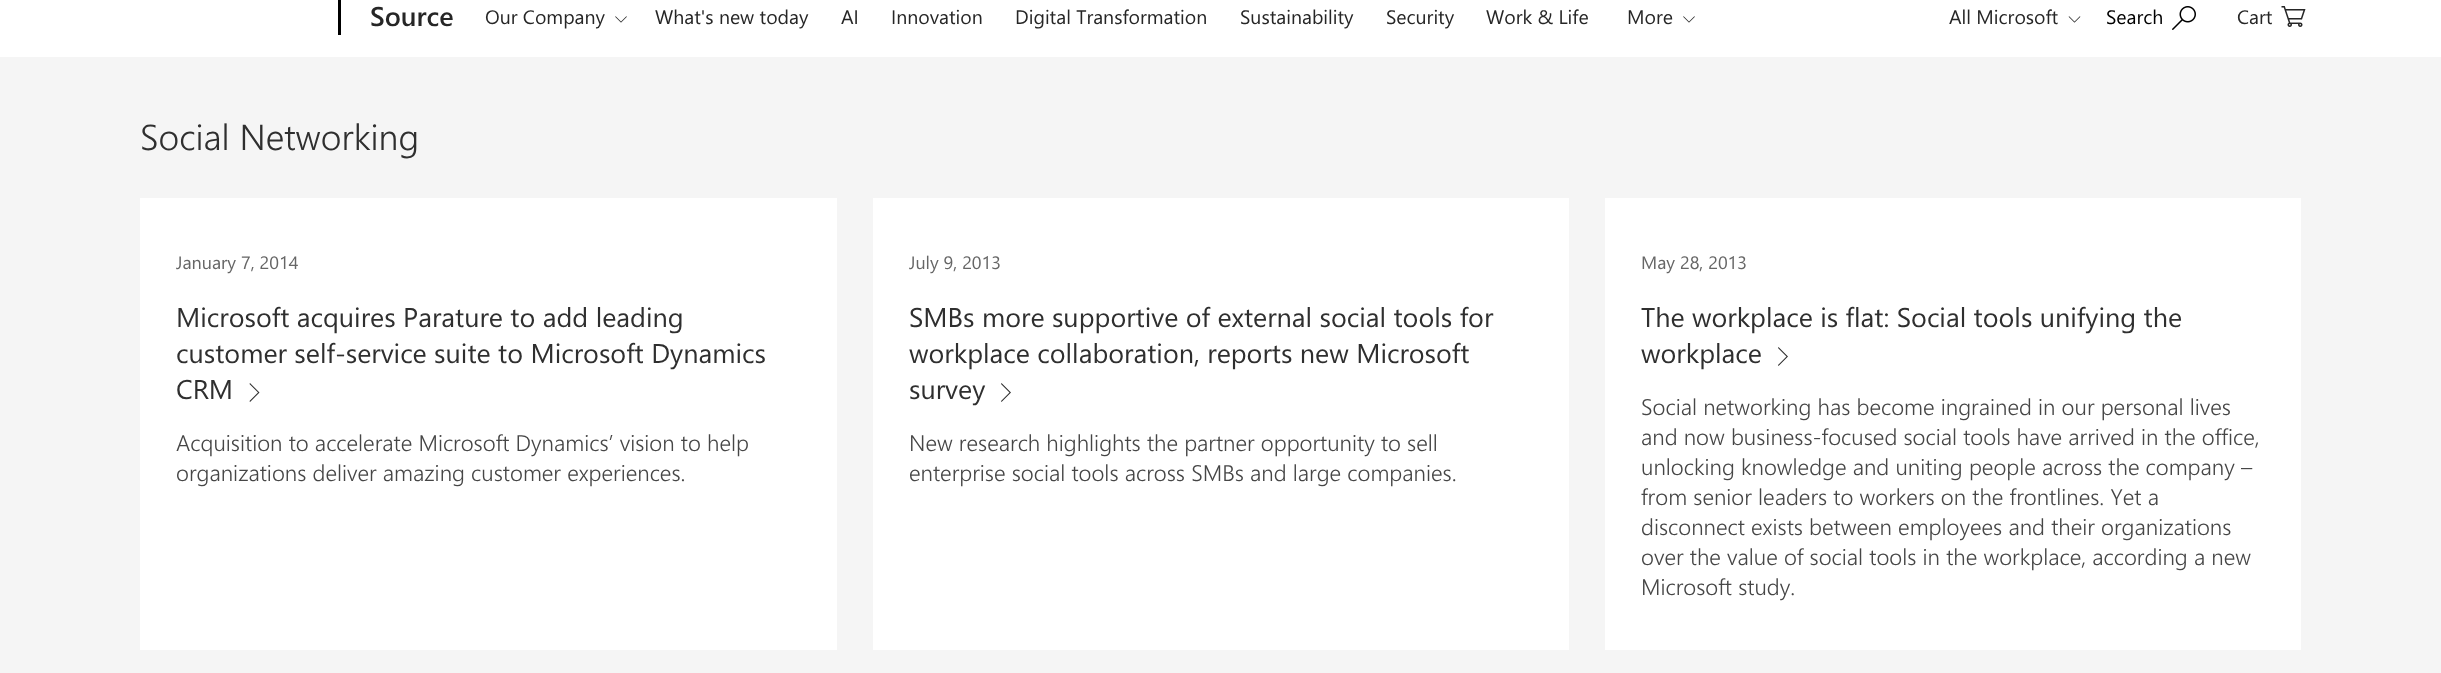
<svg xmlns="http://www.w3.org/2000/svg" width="2441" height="673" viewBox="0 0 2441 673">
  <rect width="100%" height="100%" fill="#f5f5f5"/>
  <rect x="0" y="0" width="2441" height="57" fill="#ffffff"/>
  <rect x="338" y="0" width="3" height="35" fill="#000000"/>
  <text x="370" y="26" font-family="Segoe UI" font-size="27" font-weight="600" fill="#262626">Source</text>
  <text x="485" y="24" font-family="Segoe UI" font-size="19.5" fill="#262626">Our Company</text>
  <image x="615" y="16" width="12" height="7" href="img1.png"/>
  <text x="655" y="24" font-family="Segoe UI" font-size="19.5" fill="#262626">What's new today</text>
  <text x="841" y="24" font-family="Segoe UI" font-size="19.5" fill="#262626">AI</text>
  <text x="891" y="24" font-family="Segoe UI" font-size="19.5" fill="#262626">Innovation</text>
  <text x="1015" y="24" font-family="Segoe UI" font-size="19.5" fill="#262626">Digital Transformation</text>
  <text x="1240" y="24" font-family="Segoe UI" font-size="19.5" fill="#262626">Sustainability</text>
  <text x="1386" y="24" font-family="Segoe UI" font-size="19.5" fill="#262626">Security</text>
  <text x="1486" y="24" font-family="Segoe UI" font-size="19.5" fill="#262626">Work &amp; Life</text>
  <text x="1627" y="24" font-family="Segoe UI" font-size="19.5" fill="#262626">More</text>
  <image x="1683" y="16" width="12" height="7" href="img1.png"/>
  <text x="1949" y="24" font-family="Segoe UI" font-size="19.5" fill="#262626">All Microsoft</text>
  <image x="2068" y="16" width="13" height="7" href="img2.png"/>
  <text x="2106" y="24" font-family="Segoe UI" font-size="19.5" fill="#000000">Search</text>
  <image x="2172" y="6" width="24" height="24" href="img3.png"/>
  <text x="2237" y="24" font-family="Segoe UI" font-size="19.5" fill="#262626">Cart</text>
  <image x="2281" y="6" width="25" height="21" href="img4.png"/>
  <text x="140" y="150" font-family="Segoe UI" font-size="36" font-weight="300" fill="#2f2f2f">Social Networking</text>
  <rect x="140" y="198" width="697" height="452" fill="#ffffff"/>
  <text x="176" y="269" font-family="Segoe UI" font-size="18" fill="#666666">January 7, 2014</text>
  <text x="176" y="327" font-family="Segoe UI" font-size="27" fill="#2f2f2f">Microsoft acquires Parature to add leading</text>
  <text x="176" y="363" font-family="Segoe UI" font-size="27" fill="#2f2f2f">customer self-service suite to Microsoft Dynamics</text>
  <text x="176" y="399" font-family="Segoe UI" font-size="27" fill="#2f2f2f">CRM</text>
  <path d="M249.5 401L258 392.5L249.5 384L250 383L259.5 392.5L250 402Z" fill="#2f2f2f"/>
  <text x="176" y="451" font-family="Segoe UI" font-size="22.5" font-weight="300" fill="#464646">Acquisition to accelerate Microsoft Dynamics’ vision to help</text>
  <text x="176" y="481" font-family="Segoe UI" font-size="22.5" font-weight="300" fill="#464646">organizations deliver amazing customer experiences.</text>
  <rect x="873" y="198" width="696" height="452" fill="#ffffff"/>
  <text x="909" y="269" font-family="Segoe UI" font-size="18" fill="#666666">July 9, 2013</text>
  <text x="909" y="327" font-family="Segoe UI" font-size="27" fill="#2f2f2f">SMBs more supportive of external social tools for</text>
  <text x="909" y="363" font-family="Segoe UI" font-size="27" fill="#2f2f2f">workplace collaboration, reports new Microsoft</text>
  <text x="909" y="399" font-family="Segoe UI" font-size="27" fill="#2f2f2f">survey</text>
  <path d="M1001 401L1009.5 392.5L1001 384L1001.5 383L1011 392.5L1001.5 402Z" fill="#2f2f2f"/>
  <text x="909" y="451" font-family="Segoe UI" font-size="22.5" font-weight="300" fill="#464646">New research highlights the partner opportunity to sell</text>
  <text x="909" y="481" font-family="Segoe UI" font-size="22.5" font-weight="300" fill="#464646">enterprise social tools across SMBs and large companies.</text>
  <rect x="1605" y="198" width="696" height="452" fill="#ffffff"/>
  <text x="1641" y="269" font-family="Segoe UI" font-size="18" fill="#666666">May 28, 2013</text>
  <text x="1641" y="327" font-family="Segoe UI" font-size="27" fill="#2f2f2f">The workplace is flat: Social tools unifying the</text>
  <text x="1641" y="363" font-family="Segoe UI" font-size="27" fill="#2f2f2f">workplace</text>
  <path d="M1778 365L1786.5 356.5L1778 348L1778.5 347L1788 356.5L1778.5 366Z" fill="#2f2f2f"/>
  <text x="1641" y="415" font-family="Segoe UI" font-size="22.5" font-weight="300" fill="#464646">Social networking has become ingrained in our personal lives</text>
  <text x="1641" y="445" font-family="Segoe UI" font-size="22.5" font-weight="300" fill="#464646">and now business-focused social tools have arrived in the office,</text>
  <text x="1641" y="475" font-family="Segoe UI" font-size="22.5" font-weight="300" fill="#464646">unlocking knowledge and uniting people across the company –</text>
  <text x="1641" y="505" font-family="Segoe UI" font-size="22.5" font-weight="300" fill="#464646">from senior leaders to workers on the frontlines. Yet a</text>
  <text x="1641" y="535" font-family="Segoe UI" font-size="22.5" font-weight="300" fill="#464646">disconnect exists between employees and their organizations</text>
  <text x="1641" y="565" font-family="Segoe UI" font-size="22.5" font-weight="300" fill="#464646">over the value of social tools in the workplace, according a new</text>
  <text x="1641" y="595" font-family="Segoe UI" font-size="22.5" font-weight="300" fill="#464646">Microsoft study.</text>
</svg>
